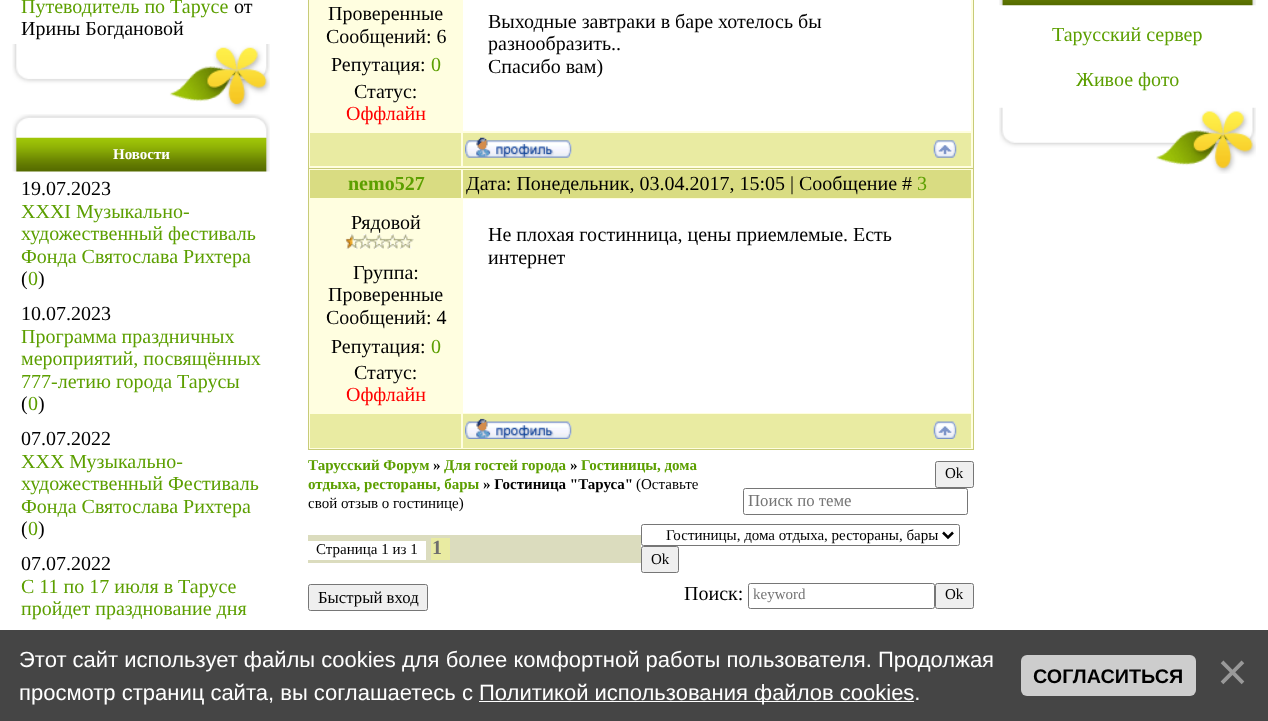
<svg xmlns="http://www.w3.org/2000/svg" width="1268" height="721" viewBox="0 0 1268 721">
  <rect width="100%" height="100%" fill="#ffffff"/>
  <image x="12" y="44" width="258" height="66" href="img1.png"/>
  <text x="21" y="13" font-family="Liberation Serif" font-size="20" fill="#5c9f00">Путеводитель по Тарусе</text>
  <text x="234" y="13" font-family="Liberation Serif" font-size="20" fill="#000000">от</text>
  <text x="21" y="35" font-family="Liberation Serif" font-size="20" fill="#000000">Ирины Богдановой</text>
  <image x="12" y="114" width="258" height="58" href="img2.png"/>
  <text x="113" y="159" font-family="Liberation Serif" font-size="15" font-weight="bold" fill="#ffffff">Новости</text>
  <text x="21" y="195" font-family="Liberation Serif" font-size="20" fill="#000000">19.07.2023</text>
  <text x="21" y="218" font-family="Liberation Serif" font-size="20" fill="#5c9f00">XXXI Музыкально-</text>
  <text x="21" y="240" font-family="Liberation Serif" font-size="20" fill="#5c9f00">художественный фестиваль</text>
  <text x="21" y="263" font-family="Liberation Serif" font-size="20" fill="#5c9f00">Фонда Святослава Рихтера</text>
  <text x="21" y="285" font-family="Liberation Serif" font-size="20" fill="#000000">(</text>
  <text x="28" y="285" font-family="Liberation Serif" font-size="20" fill="#5c9f00">0</text>
  <text x="38" y="285" font-family="Liberation Serif" font-size="20" fill="#000000">)</text>
  <text x="21" y="320" font-family="Liberation Serif" font-size="20" fill="#000000">10.07.2023</text>
  <text x="21" y="343" font-family="Liberation Serif" font-size="20" fill="#5c9f00">Программа праздничных</text>
  <text x="21" y="365" font-family="Liberation Serif" font-size="20" fill="#5c9f00">мероприятий, посвящённых</text>
  <text x="21" y="388" font-family="Liberation Serif" font-size="20" fill="#5c9f00">777-летию города Тарусы</text>
  <text x="21" y="410" font-family="Liberation Serif" font-size="20" fill="#000000">(</text>
  <text x="28" y="410" font-family="Liberation Serif" font-size="20" fill="#5c9f00">0</text>
  <text x="38" y="410" font-family="Liberation Serif" font-size="20" fill="#000000">)</text>
  <text x="21" y="445" font-family="Liberation Serif" font-size="20" fill="#000000">07.07.2022</text>
  <text x="21" y="468" font-family="Liberation Serif" font-size="20" fill="#5c9f00">XXX Музыкально-</text>
  <text x="21" y="490" font-family="Liberation Serif" font-size="20" fill="#5c9f00">художественный Фестиваль</text>
  <text x="21" y="513" font-family="Liberation Serif" font-size="20" fill="#5c9f00">Фонда Святослава Рихтера</text>
  <text x="21" y="535" font-family="Liberation Serif" font-size="20" fill="#000000">(</text>
  <text x="28" y="535" font-family="Liberation Serif" font-size="20" fill="#5c9f00">0</text>
  <text x="38" y="535" font-family="Liberation Serif" font-size="20" fill="#000000">)</text>
  <text x="21" y="570" font-family="Liberation Serif" font-size="20" fill="#000000">07.07.2022</text>
  <text x="21" y="593" font-family="Liberation Serif" font-size="20" fill="#5c9f00">С 11 по 17 июля в Тарусе</text>
  <text x="21" y="615" font-family="Liberation Serif" font-size="20" fill="#5c9f00">пройдет празднование дня</text>
  <rect x="308" y="0" width="666" height="450" fill="#c8cb78"/>
  <rect x="309" y="0" width="664" height="168" fill="#fffee0"/>
  <text x="328" y="20" font-family="Liberation Serif" font-size="20" fill="#000000">Проверенные</text>
  <text x="326" y="43" font-family="Liberation Serif" font-size="20" fill="#000000">Сообщений: 6</text>
  <text x="331" y="71" font-family="Liberation Serif" font-size="20" fill="#000000">Репутация:</text>
  <text x="431" y="71" font-family="Liberation Serif" font-size="20" fill="#5c9f00">0</text>
  <text x="354" y="98" font-family="Liberation Serif" font-size="20" fill="#000000">Статус:</text>
  <text x="346" y="120" font-family="Liberation Serif" font-size="20" fill="#ff0000">Оффлайн</text>
  <rect x="463" y="0" width="508" height="131" fill="#ffffff"/>
  <text x="488" y="28" font-family="Liberation Serif" font-size="20" fill="#000000">Выходные завтраки в баре хотелось бы</text>
  <text x="488" y="50" font-family="Liberation Serif" font-size="20" fill="#000000">разнообразить..</text>
  <text x="488" y="73" font-family="Liberation Serif" font-size="20" fill="#000000">Спасибо вам)</text>
  <rect x="310" y="133" width="151" height="33" fill="#e9eba2"/>
  <rect x="463" y="133" width="508" height="33" fill="#e9eba2"/>
  <image x="465" y="137" width="107" height="21" href="img3.png"/>
  <image x="933" y="140" width="24" height="18" href="img4.png"/>
  <rect x="309" y="169" width="664" height="280" fill="#fffee0"/>
  <rect x="310" y="170" width="151" height="28" fill="#d9dc82"/>
  <text x="348" y="190" font-family="Liberation Serif" font-size="20" font-weight="bold" fill="#5c9f00">nemo527</text>
  <rect x="463" y="170" width="508" height="28" fill="#d9dc82"/>
  <text x="466" y="190" font-family="Liberation Serif" font-size="20" fill="#000000">Дата: Понедельник, 03.04.2017, 15:05 | Сообщение #</text>
  <text x="917" y="190" font-family="Liberation Serif" font-size="20" fill="#5c9f00">3</text>
  <text x="351" y="229" font-family="Liberation Serif" font-size="20" fill="#000000">Рядовой</text>
  <image x="345" y="234" width="69" height="15" href="img5.png"/>
  <text x="353" y="279" font-family="Liberation Serif" font-size="20" fill="#000000">Группа:</text>
  <text x="328" y="301" font-family="Liberation Serif" font-size="20" fill="#000000">Проверенные</text>
  <text x="326" y="324" font-family="Liberation Serif" font-size="20" fill="#000000">Сообщений: 4</text>
  <text x="331" y="353" font-family="Liberation Serif" font-size="20" fill="#000000">Репутация:</text>
  <text x="431" y="353" font-family="Liberation Serif" font-size="20" fill="#5c9f00">0</text>
  <text x="354" y="379" font-family="Liberation Serif" font-size="20" fill="#000000">Статус:</text>
  <text x="346" y="401" font-family="Liberation Serif" font-size="20" fill="#ff0000">Оффлайн</text>
  <rect x="463" y="199" width="508" height="214" fill="#ffffff"/>
  <text x="488" y="241" font-family="Liberation Serif" font-size="20" fill="#000000">Не плохая гостинница, цены приемлемые. Есть</text>
  <text x="488" y="264" font-family="Liberation Serif" font-size="20" fill="#000000">интернет</text>
  <rect x="310" y="414" width="151" height="34" fill="#e9eba2"/>
  <rect x="463" y="414" width="508" height="34" fill="#e9eba2"/>
  <image x="465" y="418" width="107" height="21" href="img6.png"/>
  <image x="933" y="421" width="24" height="18" href="img7.png"/>
  <text x="308" y="470" font-family="Liberation Serif" font-size="15" font-weight="bold" fill="#5c9f00">Тарусский Форум</text>
  <text x="433" y="470" font-family="Liberation Serif" font-size="15" font-weight="bold" fill="#000000">»</text>
  <text x="444" y="470" font-family="Liberation Serif" font-size="15" font-weight="bold" fill="#5c9f00">Для гостей города</text>
  <text x="570" y="470" font-family="Liberation Serif" font-size="15" font-weight="bold" fill="#000000">»</text>
  <text x="581" y="470" font-family="Liberation Serif" font-size="15" font-weight="bold" fill="#5c9f00">Гостиницы, дома</text>
  <text x="308" y="489" font-family="Liberation Serif" font-size="15" font-weight="bold" fill="#5c9f00">отдыха, рестораны, бары</text>
  <text x="483" y="489" font-family="Liberation Serif" font-size="15" font-weight="bold" fill="#000000">» Гостиница "Таруса"</text>
  <text x="636" y="489" font-family="Liberation Serif" font-size="15" fill="#000000">(Оставьте</text>
  <text x="308" y="508" font-family="Liberation Serif" font-size="15" fill="#000000">свой отзыв о гостинице)</text>
  <rect x="935.5" y="461.5" width="38" height="26" rx="2" fill="#efefef" stroke="#767676"/>
  <text x="945" y="478" font-family="Liberation Serif" font-size="15" fill="#000000">Ok</text>
  <rect x="743.5" y="488.5" width="224" height="26" rx="2" fill="none" stroke="#767676"/>
  <text x="748" y="506" font-family="Liberation Serif" font-size="16.75" fill="#757575">Поиск по теме</text>
  <rect x="308" y="535" width="333" height="28" fill="#dbdcbe"/>
  <rect x="308" y="541" width="118" height="19" fill="#ffffff"/>
  <text x="316" y="554" font-family="Liberation Serif" font-size="15" fill="#000000">Страница 1 из 1</text>
  <rect x="431" y="538" width="19" height="22" fill="#e9eba2"/>
  <text x="432" y="554" font-family="Liberation Serif" font-size="20" font-weight="bold" fill="#6e6e6e">1</text>
  <rect x="641.5" y="524.5" width="318" height="21" rx="2" fill="none" stroke="#767676"/>
  <path d="M943 532.5L948 537.5L953 532.5" fill="none" stroke="#000000" stroke-width="2.5"/>
  <text x="666" y="540" font-family="Liberation Serif" font-size="15" fill="#000000">Гостиницы, дома отдыха, рестораны, бары</text>
  <rect x="641.5" y="546.5" width="37" height="26" rx="2" fill="#efefef" stroke="#767676"/>
  <text x="651" y="564" font-family="Liberation Serif" font-size="15" fill="#000000">Ok</text>
  <rect x="308.5" y="584.5" width="119" height="26" rx="2" fill="#efefef" stroke="#767676"/>
  <text x="318" y="603" font-family="Liberation Serif" font-size="16.75" fill="#000000">Быстрый вход</text>
  <text x="684" y="600" font-family="Liberation Serif" font-size="20" fill="#000000">Поиск:</text>
  <rect x="748.5" y="583.5" width="186" height="25" rx="2" fill="none" stroke="#767676"/>
  <text x="753" y="599" font-family="Liberation Serif" font-size="15" fill="#757575">keyword</text>
  <rect x="935.5" y="583.5" width="38" height="25" rx="2" fill="#efefef" stroke="#767676"/>
  <text x="945" y="599" font-family="Liberation Serif" font-size="15" fill="#000000">Ok</text>
  <image x="999" y="0" width="257" height="6" href="img8.png"/>
  <image x="999" y="107" width="257" height="67" href="img9.png"/>
  <text x="1052" y="41" font-family="Liberation Serif" font-size="20" fill="#5c9f00">Тарусский сервер</text>
  <text x="1076" y="86" font-family="Liberation Serif" font-size="20" fill="#5c9f00">Живое фото</text>
  <rect x="0" y="630" width="1268" height="91" fill="#000000" fill-opacity="0.73"/>
  <text x="19" y="667" font-family="Liberation Sans" font-size="22" fill="#ffffff">Этот сайт использует файлы cookies для более комфортной работы пользователя. Продолжая</text>
  <text x="19" y="700" font-family="Liberation Sans" font-size="22" fill="#ffffff">просмотр страниц сайта, вы соглашаетесь с</text>
  <rect x="479" y="701" width="435" height="1" fill="#ffffff"/>
  <text x="479" y="700" font-family="Liberation Sans" font-size="22" fill="#ffffff">Политикой использования файлов cookies.</text>
  <rect x="1021" y="655" width="175" height="41" rx="6" fill="#cdcdcd"/>
  <text x="1033" y="683" font-family="Liberation Sans" font-size="19.75" font-weight="bold" fill="#000000">СОГЛАСИТЬСЯ</text>
  <text x="1217" y="690" font-family="Liberation Sans" font-size="53" fill="#999999">×</text>
</svg>
